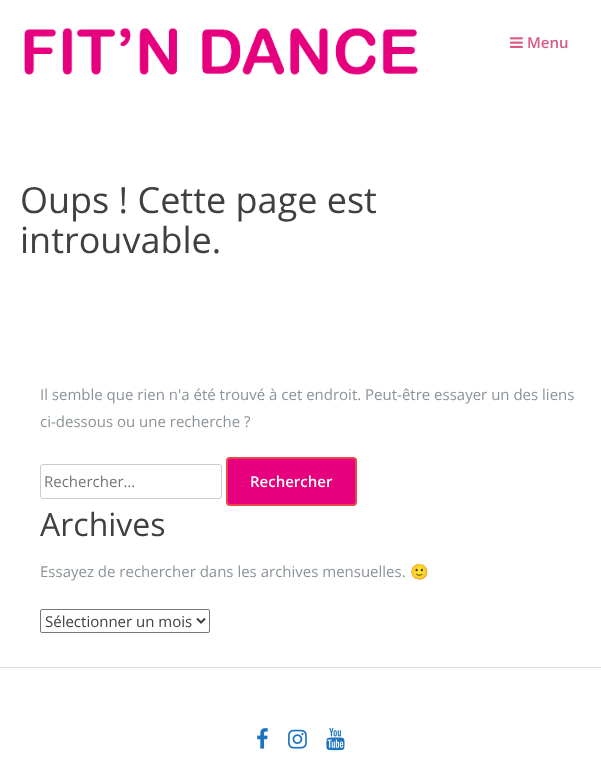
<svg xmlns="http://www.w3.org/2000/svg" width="601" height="764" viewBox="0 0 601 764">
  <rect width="100%" height="100%" fill="#ffffff"/>
  <image x="24" y="28" width="394" height="47" href="img1.png"/>
  <image x="510" y="37" width="13" height="11" href="img2.png"/>
  <text x="527" y="48" font-family="Open Sans" font-size="15" font-weight="600" fill="#da5886">Menu</text>
  <text x="20" y="213" font-family="Open Sans" font-size="36" fill="#404040">Oups ! Cette page est</text>
  <text x="20" y="253" font-family="Open Sans" font-size="36" fill="#404040">introuvable.</text>
  <text x="40" y="400" font-family="Open Sans" font-size="15" fill="#8c9398">Il semble que rien n'a été trouvé à cet endroit. Peut-être essayer un des liens</text>
  <text x="40" y="427" font-family="Open Sans" font-size="15" fill="#8c9398">ci-dessous ou une recherche ?</text>
  <rect x="40.5" y="464.5" width="181" height="34" rx="2.5" fill="none" stroke="#cccccc"/>
  <text x="44" y="487" font-family="Open Sans" font-size="15" fill="#757575">Rechercher…</text>
  <rect x="227" y="458" width="129" height="47" rx="3" fill="#e6007e" stroke="#ea474b" stroke-width="2"/>
  <text x="250" y="487" font-family="Open Sans" font-size="15" font-weight="600" fill="#ffffff">Rechercher</text>
  <text x="40" y="536" font-family="Open Sans" font-size="32" fill="#404040">Archives</text>
  <text x="40" y="577" font-family="Open Sans" font-size="15" fill="#8c9398">Essayez de rechercher dans les archives mensuelles.</text>
  <text x="410" y="577" font-family="Noto Color Emoji" font-size="15" fill="#8c9398">🙂</text>
  <rect x="40.5" y="609.5" width="169" height="23" rx="1.5" fill="none" stroke="#767676"/>
  <path d="M197 618.5L201 622.5L205 618.5" fill="none" stroke="#404040" stroke-width="2"/>
  <text x="45" y="627" font-family="Open Sans" font-size="15" fill="#404040">Sélectionner un mois</text>
  <rect x="0" y="667" width="601" height="1" fill="#dadada"/>
  <image x="257" y="728" width="11" height="21" href="img3.png"/>
  <image x="288" y="729" width="19" height="20" href="img4.png"/>
  <image x="326" y="728" width="19" height="23" href="img5.png"/>
</svg>
